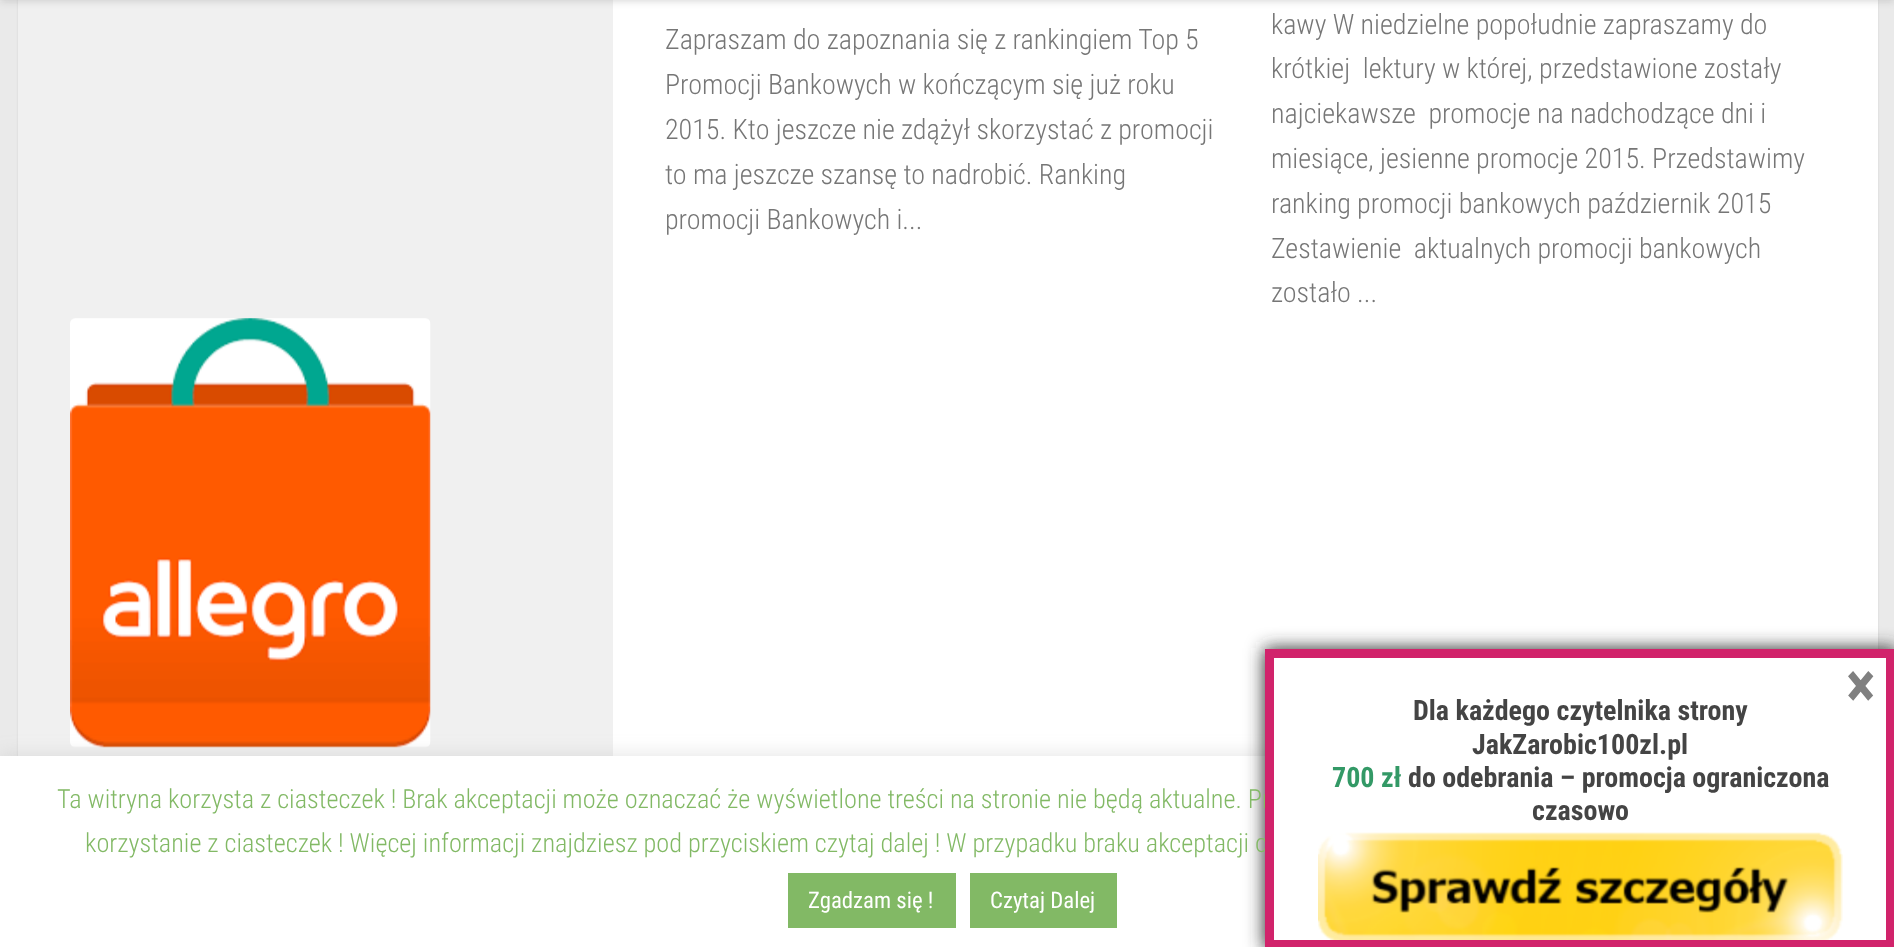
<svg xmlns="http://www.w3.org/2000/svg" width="1894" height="947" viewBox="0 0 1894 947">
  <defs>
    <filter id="blur1" x="-50%" y="-200%" width="200%" height="500%"><feGaussianBlur stdDeviation="1"/></filter>
    <filter id="blur2" x="-50%" y="-200%" width="200%" height="500%"><feGaussianBlur stdDeviation="4.5"/></filter>
    <filter id="blur3" x="-50%" y="-200%" width="200%" height="500%"><feGaussianBlur stdDeviation="9"/></filter>
  </defs>
  <rect width="100%" height="100%" fill="#eaeaea"/>
  <rect x="18" y="-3" width="1860" height="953" fill="#000000" fill-opacity="0.1" filter="url(#blur1)"/>
  <rect x="613" y="0" width="1265" height="756" fill="#ffffff"/>
  <rect x="18" y="0" width="595" height="756" fill="#f0f0f0"/>
  <rect x="0" y="0" width="1894" height="2" fill="#ffffff" fill-opacity="0.15"/>
  <rect x="0" y="-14" width="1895" height="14" fill="#000000" fill-opacity="0.2" filter="url(#blur2)"/>
  <text x="665" y="49" font-family="Roboto Condensed" font-size="28" font-weight="300" fill="#767676">Zapraszam do zapoznania się z rankingiem Top 5</text>
  <text x="665" y="94" font-family="Roboto Condensed" font-size="28" font-weight="300" fill="#767676">Promocji Bankowych w kończącym się już roku</text>
  <text x="665" y="139" font-family="Roboto Condensed" font-size="28" font-weight="300" fill="#767676">2015. Kto jeszcze nie zdążył skorzystać z promocji</text>
  <text x="665" y="184" font-family="Roboto Condensed" font-size="28" font-weight="300" fill="#767676">to ma jeszcze szansę to nadrobić. Ranking</text>
  <text x="665" y="229" font-family="Roboto Condensed" font-size="28" font-weight="300" fill="#767676">promocji Bankowych i...</text>
  <text x="1271" y="34" font-family="Roboto Condensed" font-size="28" font-weight="300" fill="#767676">kawy W niedzielne popołudnie zapraszamy do</text>
  <text x="1271" y="78" font-family="Roboto Condensed" font-size="28" font-weight="300" fill="#767676" xml:space="preserve">krótkiej  lektury w której, przedstawione zostały</text>
  <text x="1271" y="123" font-family="Roboto Condensed" font-size="28" font-weight="300" fill="#767676" xml:space="preserve">najciekawsze  promocje na nadchodzące dni i</text>
  <text x="1271" y="168" font-family="Roboto Condensed" font-size="28" font-weight="300" fill="#767676">miesiące, jesienne promocje 2015. Przedstawimy</text>
  <text x="1271" y="213" font-family="Roboto Condensed" font-size="28" font-weight="300" fill="#767676">ranking promocji bankowych październik 2015</text>
  <text x="1271" y="258" font-family="Roboto Condensed" font-size="28" font-weight="300" fill="#767676" xml:space="preserve">Zestawienie  aktualnych promocji bankowych</text>
  <text x="1271" y="302" font-family="Roboto Condensed" font-size="28" font-weight="300" fill="#767676">zostało ...</text>
  <image x="70" y="318" width="361" height="430" href="img1.png"/>
  <rect x="0" y="754" width="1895" height="193" fill="#acabab" fill-opacity="0.3" filter="url(#blur3)"/>
  <rect x="0" y="756" width="1265" height="191" fill="#ffffff"/>
  <rect x="1264" y="648" width="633" height="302" fill="#333333" filter="url(#blur3)"/>
  <text x="57" y="808" font-family="Roboto Condensed" font-size="26.25" font-weight="300" fill="#82b965">Ta witryna korzysta z ciasteczek ! Brak akceptacji może oznaczać że wyświetlone treści na stronie nie będą aktualne. Pr</text>
  <text x="85" y="852" font-family="Roboto Condensed" font-size="26.25" font-weight="300" fill="#82b965">korzystanie z ciasteczek ! Więcej informacji znajdziesz pod przyciskiem czytaj dalej ! W przypadku braku akceptacji o</text>
  <rect x="1269.5" y="653.5" width="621" height="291" fill="#ffffff" stroke="#d1236b" stroke-width="9"/>
  <text x="1846" y="707" font-family="Roboto Condensed" font-size="63" font-weight="bold" fill="#808080">×</text>
  <text x="1413" y="720" font-family="Roboto Condensed" font-size="28" font-weight="bold" fill="#444444">Dla każdego czytelnika strony</text>
  <text x="1472" y="754" font-family="Roboto Condensed" font-size="28" font-weight="bold" fill="#444444">JakZarobic100zl.pl</text>
  <text x="1332" y="787" font-family="Roboto Condensed" font-size="28" font-weight="bold" fill="#339966">700 zł</text>
  <text x="1408" y="787" font-family="Roboto Condensed" font-size="28" font-weight="bold" fill="#444444">do odebrania – promocja ograniczona</text>
  <text x="1532" y="820" font-family="Roboto Condensed" font-size="28" font-weight="bold" fill="#444444">czasowo</text>
  <image x="1318" y="832" width="525" height="108" href="img2.png"/>
  <rect x="788" y="873" width="168" height="55" fill="#82b965"/>
  <text x="808" y="908" font-family="Roboto Condensed" font-size="22.75" fill="#ffffff">Zgadzam się !</text>
  <rect x="970" y="873" width="147" height="55" fill="#82b965"/>
  <text x="990" y="908" font-family="Roboto Condensed" font-size="22.75" fill="#ffffff">Czytaj Dalej</text>
</svg>
